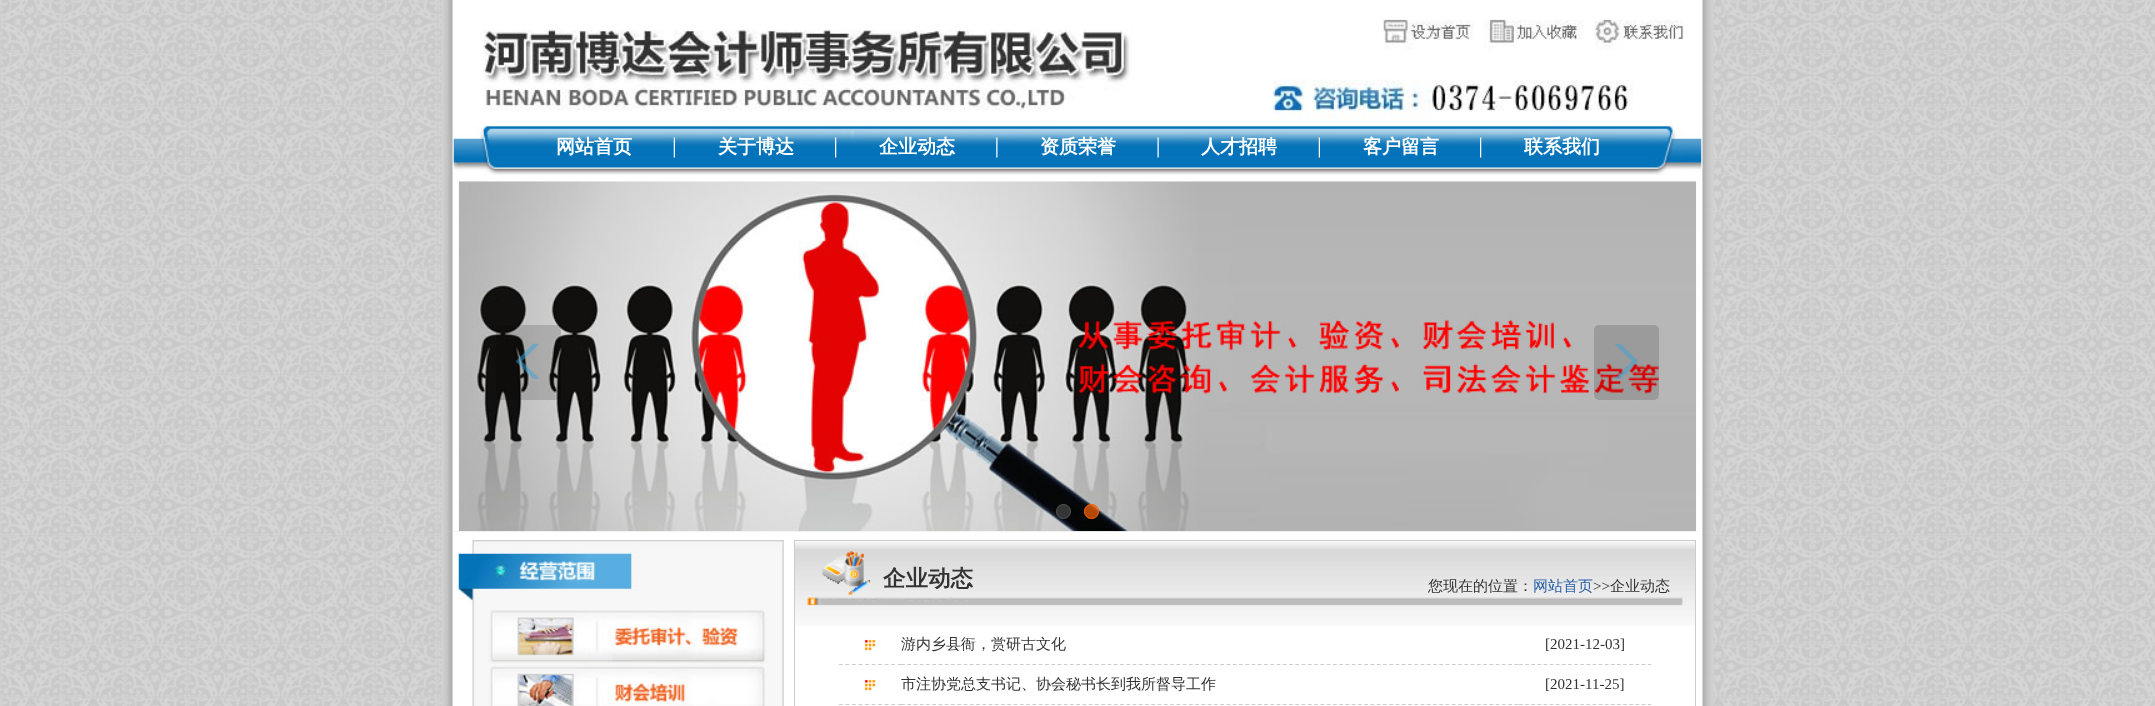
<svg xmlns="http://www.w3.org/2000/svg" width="2155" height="706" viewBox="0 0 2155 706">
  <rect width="100%" height="100%" fill="#ffffff"/>
  <image x="0" y="0" width="2155" height="706" href="img1.png"/>
  <image x="441" y="0" width="1273" height="532" href="img2.png"/>
  <image x="483" y="19" width="1201" height="101" href="img3.png"/>
  <image x="453" y="125" width="1249" height="50" href="img4.png"/>
  <text x="556" y="153" font-family="WenQuanYi Zen Hei" font-size="19" font-weight="bold" fill="#ffffff">网站首页</text>
  <image x="673" y="137" width="2" height="21" href="img5.png"/>
  <text x="718" y="153" font-family="WenQuanYi Zen Hei" font-size="19" font-weight="bold" fill="#ffffff">关于博达</text>
  <image x="835" y="137" width="2" height="21" href="img6.png"/>
  <text x="879" y="153" font-family="WenQuanYi Zen Hei" font-size="19" font-weight="bold" fill="#ffffff">企业动态</text>
  <image x="996" y="137" width="2" height="21" href="img7.png"/>
  <text x="1040" y="153" font-family="WenQuanYi Zen Hei" font-size="19" font-weight="bold" fill="#ffffff">资质荣誉</text>
  <image x="1157" y="137" width="2" height="21" href="img8.png"/>
  <text x="1201" y="153" font-family="WenQuanYi Zen Hei" font-size="19" font-weight="bold" fill="#ffffff">人才招聘</text>
  <image x="1318" y="137" width="2" height="21" href="img9.png"/>
  <text x="1363" y="153" font-family="WenQuanYi Zen Hei" font-size="19" font-weight="bold" fill="#ffffff">客户留言</text>
  <image x="1480" y="137" width="2" height="21" href="img6.png"/>
  <text x="1524" y="153" font-family="WenQuanYi Zen Hei" font-size="19" font-weight="bold" fill="#ffffff">联系我们</text>
  <image x="441" y="531" width="1273" height="175" href="img13.png"/>
  <image x="458" y="181" width="1239" height="351" href="img10.png"/>
  <rect x="496" y="325" width="65" height="75" rx="5" fill="#000000" fill-opacity="0.15"/>
  <image x="516" y="343" width="23" height="36" href="img11.png"/>
  <rect x="1594" y="325" width="65" height="75" rx="5" fill="#000000" fill-opacity="0.15"/>
  <image x="1615" y="343" width="23" height="36" href="img12.png"/>
  <circle cx="1063.5" cy="511.5" r="7.5" fill="#646464" fill-opacity="0.5"/>
  <circle cx="1063.5" cy="511.5" r="7" fill="none" stroke="#646464" stroke-opacity="0.56"/>
  <circle cx="1091.5" cy="511.5" r="7.5" fill="#ff6400" fill-opacity="0.7"/>
  <circle cx="1091.5" cy="511.5" r="7" fill="none" stroke="#ff6400" stroke-opacity="0.8"/>
  <image x="458" y="540" width="326" height="166" href="img14.png"/>
  <image x="487" y="609" width="280" height="55" href="img15.png"/>
  <image x="488" y="666" width="277" height="40" href="img16.png"/>
  <rect x="794.5" y="540.5" width="901" height="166" fill="none" stroke="#cccccc"/>
  <image x="795" y="541" width="900" height="85" href="img17.png"/>
  <image x="807" y="551" width="876" height="55" href="img18.png"/>
  <text x="883" y="586" font-family="WenQuanYi Zen Hei" font-size="22.5" font-weight="bold" fill="#333333">企业动态</text>
  <text x="1428" y="591" font-family="WenQuanYi Zen Hei" font-size="15" font-weight="500" fill="#333333">您现在的位置：</text>
  <text x="1533" y="591" font-family="WenQuanYi Zen Hei" font-size="15" font-weight="500" fill="#2b61a7">网站首页</text>
  <text x="1593" y="591" font-family="Liberation Serif" font-size="15" fill="#333333">&gt;&gt;</text>
  <text x="1610" y="591" font-family="WenQuanYi Zen Hei" font-size="15" font-weight="500" fill="#333333">企业动态</text>
  <path d="M839 664.5H901" fill="none" stroke="#cccccc" stroke-width="1.2" stroke-dasharray="3.75 2.78"/>
  <image x="864" y="639" width="12" height="12" href="img19.png"/>
  <path d="M901 664.5H1519" fill="none" stroke="#cccccc" stroke-width="1.2" stroke-dasharray="3.75 2.51"/>
  <text x="901" y="649" font-family="WenQuanYi Zen Hei" font-size="15" font-weight="500" fill="#333333">游内乡县衙，赏研古文化</text>
  <path d="M1519 664.5H1651" fill="none" stroke="#cccccc" stroke-width="1.2" stroke-dasharray="3.75 2.38"/>
  <text x="1545" y="649" font-family="Liberation Serif" font-size="15" fill="#333333">[2021-12-03]</text>
  <path d="M839 704.5H901" fill="none" stroke="#cccccc" stroke-width="1.2" stroke-dasharray="3.75 2.78"/>
  <image x="864" y="679" width="12" height="12" href="img19.png"/>
  <path d="M901 704.5H1519" fill="none" stroke="#cccccc" stroke-width="1.2" stroke-dasharray="3.75 2.51"/>
  <text x="901" y="689" font-family="WenQuanYi Zen Hei" font-size="15" font-weight="500" fill="#333333">市注协党总支书记、协会秘书长到我所督导工作</text>
  <path d="M1519 704.5H1651" fill="none" stroke="#cccccc" stroke-width="1.2" stroke-dasharray="3.75 2.38"/>
  <text x="1545" y="689" font-family="Liberation Serif" font-size="15" fill="#333333">[2021-11-25]</text>
</svg>
